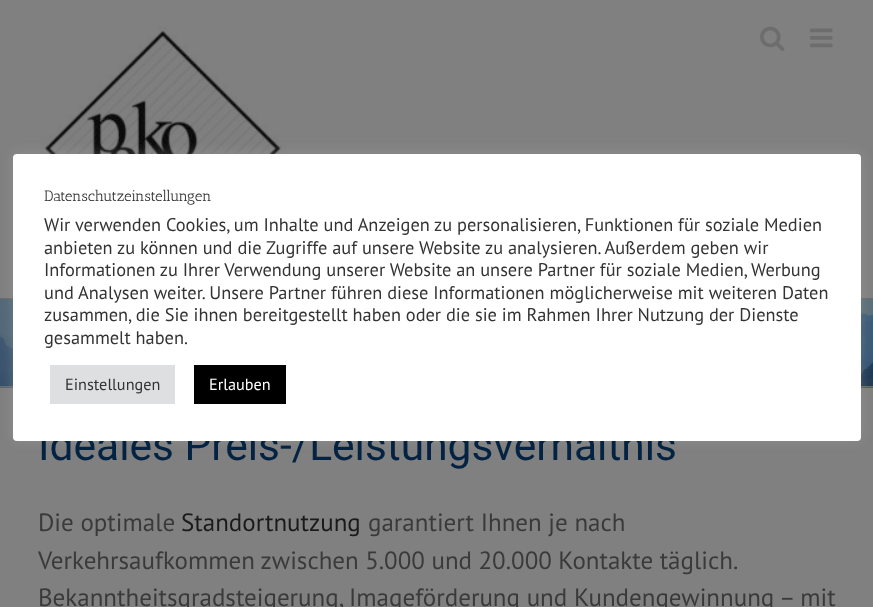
<svg xmlns="http://www.w3.org/2000/svg" width="873" height="607" viewBox="0 0 873 607">
  <defs>
    <filter id="blur1" x="-50%" y="-200%" width="200%" height="500%"><feGaussianBlur stdDeviation="6"/></filter>
  </defs>
  <rect width="100%" height="100%" fill="#808080"/>
  <image x="40" y="26" width="246" height="128" href="img1.png"/>
  <rect x="0" y="387" width="873" height="1" fill="#7b7b7b"/>
  <image x="0" y="299" width="873" height="89" href="img4.png"/>
  <rect x="0" y="298" width="873" height="1" fill="#696a6a"/>
  <rect x="0" y="386" width="873" height="1" fill="#696a6a"/>
  <rect x="13" y="153" width="848" height="287" rx="4" fill="#acabab" fill-opacity="0.3" filter="url(#blur1)"/>
  <text x="38" y="460" font-family="Roboto" font-size="42.5" fill="#042342">Ideales Preis-/Leistungsverhältnis</text>
  <rect x="13" y="154" width="848" height="287" rx="4" fill="#ffffff"/>
  <text x="44" y="201" font-family="Antic Slab" font-size="15" fill="#333333">Datenschutzeinstellungen</text>
  <text x="44" y="231" font-family="PT Sans" font-size="18.35" fill="#333333">Wir verwenden Cookies, um Inhalte und Anzeigen zu personalisieren, Funktionen für soziale Medien</text>
  <text x="44" y="254" font-family="PT Sans" font-size="18.35" fill="#333333">anbieten zu können und die Zugriffe auf unsere Website zu analysieren. Außerdem geben wir</text>
  <text x="44" y="276" font-family="PT Sans" font-size="18.35" fill="#333333">Informationen zu Ihrer Verwendung unserer Website an unsere Partner für soziale Medien, Werbung</text>
  <text x="44" y="299" font-family="PT Sans" font-size="18.35" fill="#333333">und Analysen weiter. Unsere Partner führen diese Informationen möglicherweise mit weiteren Daten</text>
  <text x="44" y="321" font-family="PT Sans" font-size="18.35" fill="#333333">zusammen, die Sie ihnen bereitgestellt haben oder die sie im Rahmen Ihrer Nutzung der Dienste</text>
  <text x="44" y="344" font-family="PT Sans" font-size="18.35" fill="#333333">gesammelt haben.</text>
  <rect x="50" y="365" width="125" height="39" fill="#dedfe0"/>
  <text x="65" y="390" font-family="PT Sans" font-size="16.25" fill="#333333">Einstellungen</text>
  <rect x="194" y="365" width="92" height="39" fill="#000000"/>
  <text x="209" y="390" font-family="PT Sans" font-size="16.25" fill="#ffffff">Erlauben</text>
  <image x="760" y="26" width="25" height="25" href="img2.png"/>
  <image x="810" y="28" width="23" height="20" href="img3.png"/>
  <text x="38" y="531" font-family="PT Sans" font-size="25" fill="#3a3a3a">Die optimale</text>
  <text x="181" y="531" font-family="PT Sans" font-size="25" fill="#1a1a1a">Standortnutzung</text>
  <text x="368" y="531" font-family="PT Sans" font-size="25" fill="#3a3a3a">garantiert Ihnen je nach</text>
  <text x="38" y="569" word-spacing="-0.25" font-family="PT Sans" font-size="25" fill="#3a3a3a">Verkehrsaufkommen zwischen 5.000 und 20.000 Kontakte täglich.</text>
  <text x="38" y="606" font-family="PT Sans" font-size="25" fill="#3a3a3a">Bekanntheitsgradsteigerung, Imageförderung und Kundengewinnung – mit</text>
</svg>
